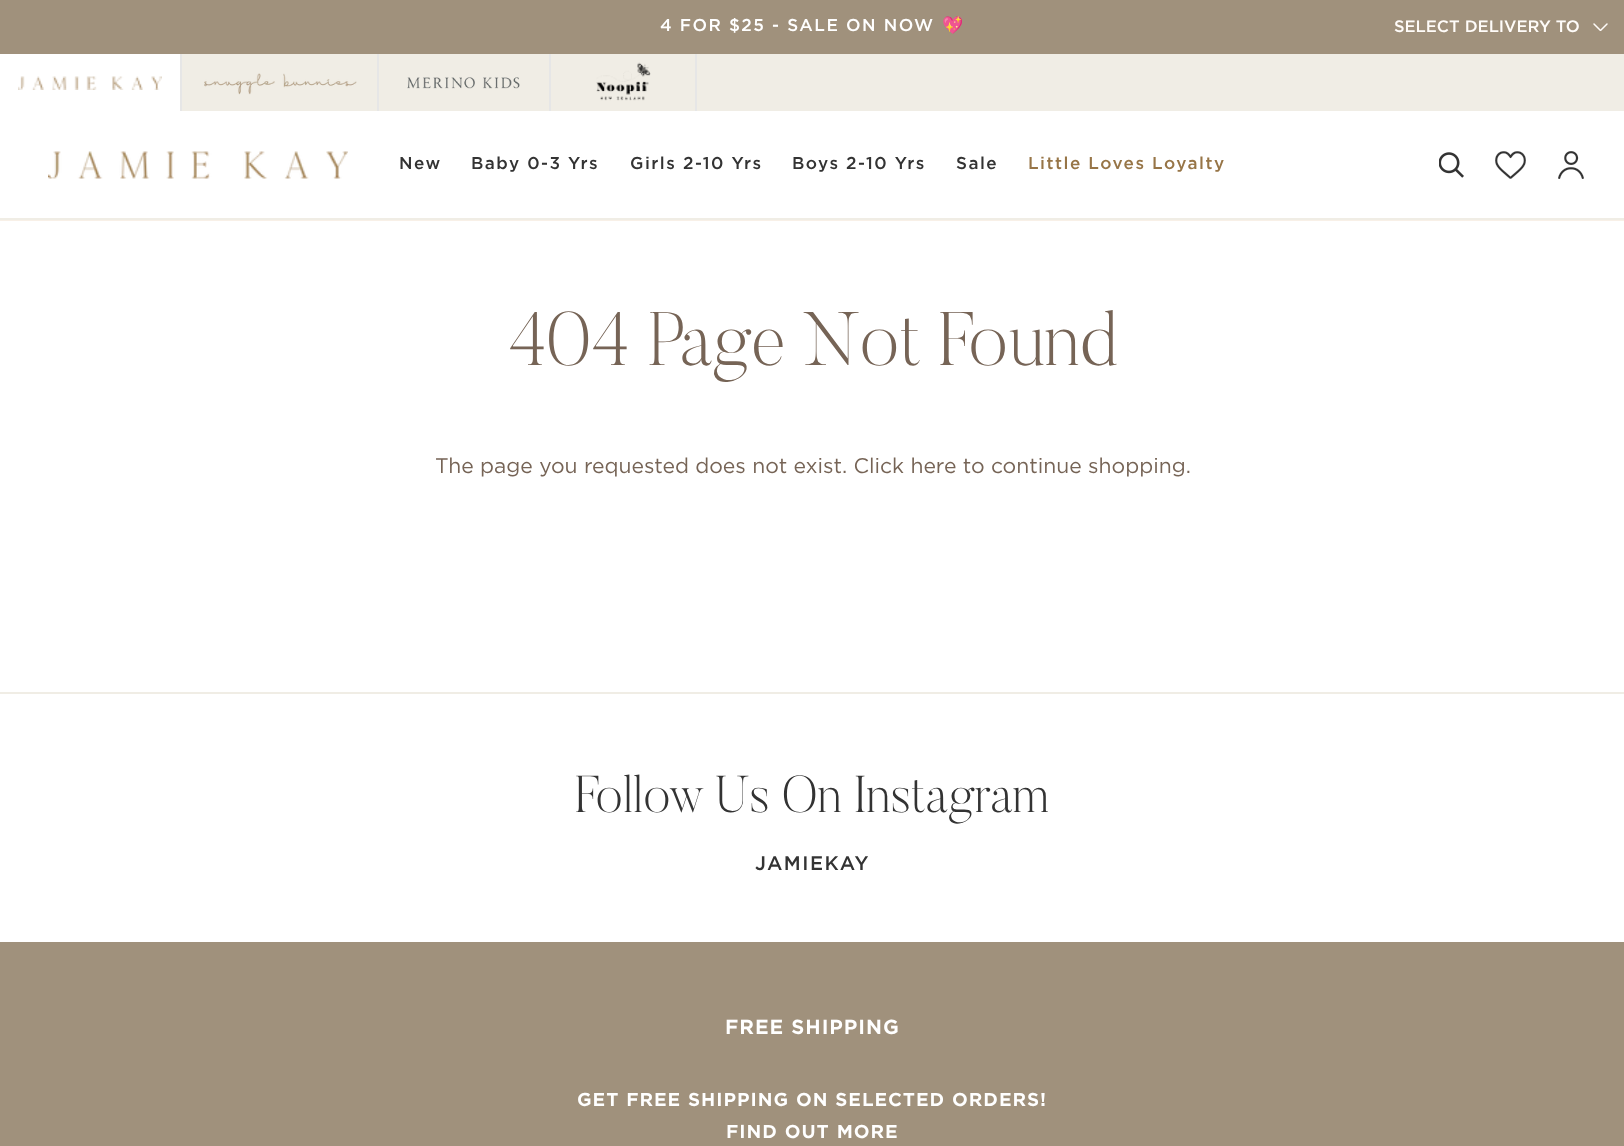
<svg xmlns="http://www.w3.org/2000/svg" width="1624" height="1146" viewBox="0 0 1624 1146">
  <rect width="100%" height="100%" fill="#ffffff"/>
  <rect x="0" y="0" width="1624" height="54" fill="#a0917c"/>
  <text x="660" y="31" font-family="Gotham" font-size="17.1" font-weight="500" letter-spacing="1.5" fill="#ffffff">4 FOR $25 - SALE ON NOW</text>
  <text x="942" y="31" font-family="Noto Color Emoji" font-size="17.1" letter-spacing="1.5" fill="#ffffff">💖</text>
  <text x="1394" y="32" font-family="Gotham" font-size="16.5" font-weight="500" fill="#fffcf9">SELECT DELIVERY TO</text>
  <path d="M1594 24L1600 30C1600.5 30.5 1600.5 30.5 1601 30L1607 24" fill="none" stroke="#fffcf9" stroke-width="1.5" stroke-linecap="round"/>
  <rect x="182" y="54" width="1442" height="57" fill="#f0ede5"/>
  <rect x="180" y="54" width="2" height="57" fill="#e6e6e6"/>
  <image x="18" y="76" width="144" height="14" href="img1.png"/>
  <rect x="377" y="54" width="2" height="57" fill="#e6e6e6"/>
  <image x="204" y="73" width="153" height="22" href="img2.png"/>
  <rect x="549" y="54" width="2" height="57" fill="#e6e6e6"/>
  <image x="407" y="77" width="113" height="12" href="img3.png"/>
  <rect x="695" y="54" width="2" height="57" fill="#e6e6e6"/>
  <image x="596" y="62" width="55" height="39" href="img4.png"/>
  <rect x="0" y="220" width="1624" height="1" fill="#f8f0e7"/>
  <rect x="0" y="218" width="1624" height="2" fill="#f0ede5"/>
  <image x="48" y="151" width="300" height="28" href="img5.png"/>
  <text x="399" y="169" font-family="Gotham" font-size="17.1" font-weight="500" letter-spacing="1.5" fill="#333333">New</text>
  <text x="471" y="169" font-family="Gotham" font-size="17.1" font-weight="500" letter-spacing="1.5" fill="#333333">Baby 0-3 Yrs</text>
  <text x="630" y="169" font-family="Gotham" font-size="17.1" font-weight="500" letter-spacing="1.5" fill="#333333">Girls 2-10 Yrs</text>
  <text x="792" y="169" font-family="Gotham" font-size="17.1" font-weight="500" letter-spacing="1.5" fill="#333333">Boys 2-10 Yrs</text>
  <text x="956" y="169" font-family="Gotham" font-size="17.1" font-weight="500" letter-spacing="1.5" fill="#333333">Sale</text>
  <text x="1028" y="169" font-family="Gotham" font-size="17.1" font-weight="500" letter-spacing="1.5" fill="#977547">Little Loves Loyalty</text>
  <image x="1439" y="152" width="25" height="26" href="img6.png"/>
  <image x="1495" y="151" width="31" height="28" href="img7.png"/>
  <image x="1558" y="151" width="26" height="28" href="img8.png"/>
  <text x="508" y="365" font-family="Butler" font-size="75.25" font-weight="200" fill="#766456">404 Page Not Found</text>
  <text x="435" y="473" font-family="Gotham" font-size="21.1" fill="#766456">The page you requested does not exist. Click here to continue shopping.</text>
  <rect x="0" y="692" width="1624" height="2" fill="#f0ede5"/>
  <text x="575" y="812" font-family="Butler" font-size="51.5" font-weight="200" fill="#333333">Follow Us On Instagram</text>
  <text x="755" y="870" font-family="Gotham" font-size="19.5" font-weight="500" letter-spacing="1.5" fill="#333333">JAMIEKAY</text>
  <rect x="0" y="942" width="1624" height="204" fill="#a0917c"/>
  <text x="725" y="1034" font-family="Gotham" font-size="19.5" font-weight="bold" letter-spacing="1.5" fill="#ffffff">FREE SHIPPING</text>
  <text x="577" y="1106" font-family="Gotham" font-size="18" font-weight="bold" letter-spacing="1.5" fill="#ffffff">GET FREE SHIPPING ON SELECTED ORDERS!</text>
  <text x="726" y="1138" font-family="Gotham" font-size="18" font-weight="bold" letter-spacing="1.5" fill="#ffffff">FIND OUT MORE</text>
</svg>
